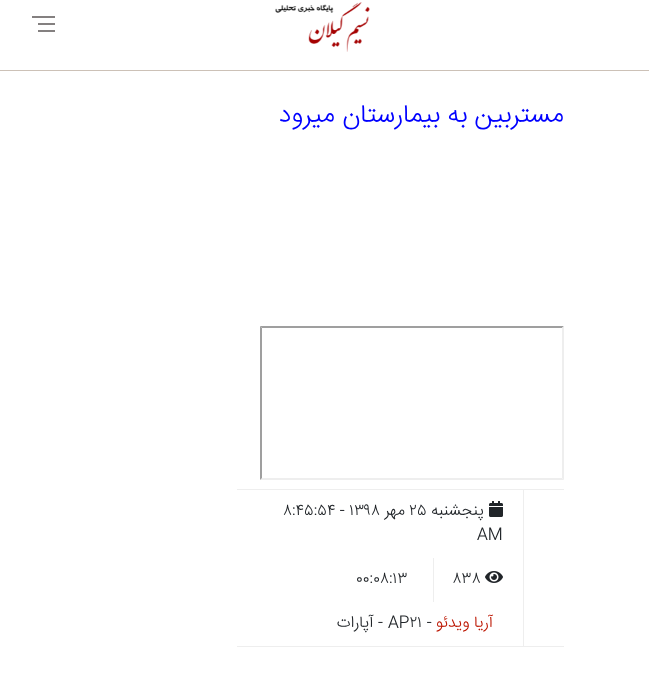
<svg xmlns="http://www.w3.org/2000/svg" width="649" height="675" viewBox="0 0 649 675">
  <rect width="100%" height="100%" fill="#ffffff"/>
  <image x="275" y="2" width="95" height="50" href="img1.png"/>
  <rect x="38" y="23" width="17" height="2" fill="#848080"/>
  <rect x="32" y="16" width="23" height="2" fill="#848080"/>
  <rect x="38" y="30" width="17" height="2" fill="#848080"/>
  <rect x="0" y="70" width="649" height="1" fill="#ccc1b7"/>
  <text x="564" y="122" font-family="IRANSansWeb" font-size="26" font-weight="300" direction="rtl" fill="#0000ff">مستربین به بیمارستان میرود</text>
  <path d="M260 326H564L562 328H262Z" fill="#9f9f9f"/>
  <path d="M564 326V480L562 478V328Z" fill="#eeeeee"/>
  <path d="M564 480H260L262 478H562Z" fill="#eeeeee"/>
  <path d="M260 480V326L262 328V478Z" fill="#9f9f9f"/>
  <rect x="237" y="489" width="327" height="1" fill="#eeeeee"/>
  <rect x="237" y="646" width="327" height="1" fill="#eeeeee"/>
  <rect x="523" y="490" width="1" height="156" fill="#eeeeee"/>
  <image x="489" y="501" width="14" height="16" href="img2.png"/>
  <text x="484" y="515" font-family="IRANSansWeb" font-size="16" font-weight="300" direction="rtl" fill="#212529">پنجشنبه</text>
  <text x="409" y="515" font-family="IRANSansWeb" font-size="16" font-weight="300" fill="#212529">۲۵</text>
  <text x="405" y="515" font-family="IRANSansWeb" font-size="16" font-weight="300" direction="rtl" fill="#212529">مهر</text>
  <text x="283" y="515" font-family="IRANSansWeb" font-size="16" font-weight="300" fill="#212529">۸:۴۵:۵۴ - ۱۳۹۸</text>
  <text x="477" y="539" font-family="IRANSansWeb" font-size="16" font-weight="300" fill="#212529">AM</text>
  <image x="485" y="571" width="18" height="12" href="img3.png"/>
  <text x="454" y="583" font-family="IRANSansWeb" font-size="16" font-weight="300" fill="#212529">۸۳۸</text>
  <rect x="433" y="558" width="1" height="44" fill="#eeeeee"/>
  <text x="356" y="583" font-family="IRANSansWeb" font-size="16" font-weight="300" fill="#212529">۰۰:۰۸:۱۳</text>
  <text x="493" y="627" font-family="IRANSansWeb" font-size="16" font-weight="300" direction="rtl" fill="#bc1500">آریا ویدئو</text>
  <text x="388" y="627" font-family="IRANSansWeb" font-size="16" font-weight="300" fill="#212529">AP۲۱ -</text>
  <text x="383" y="627" font-family="IRANSansWeb" font-size="16" font-weight="300" direction="rtl" fill="#212529">- آپارات</text>
</svg>
